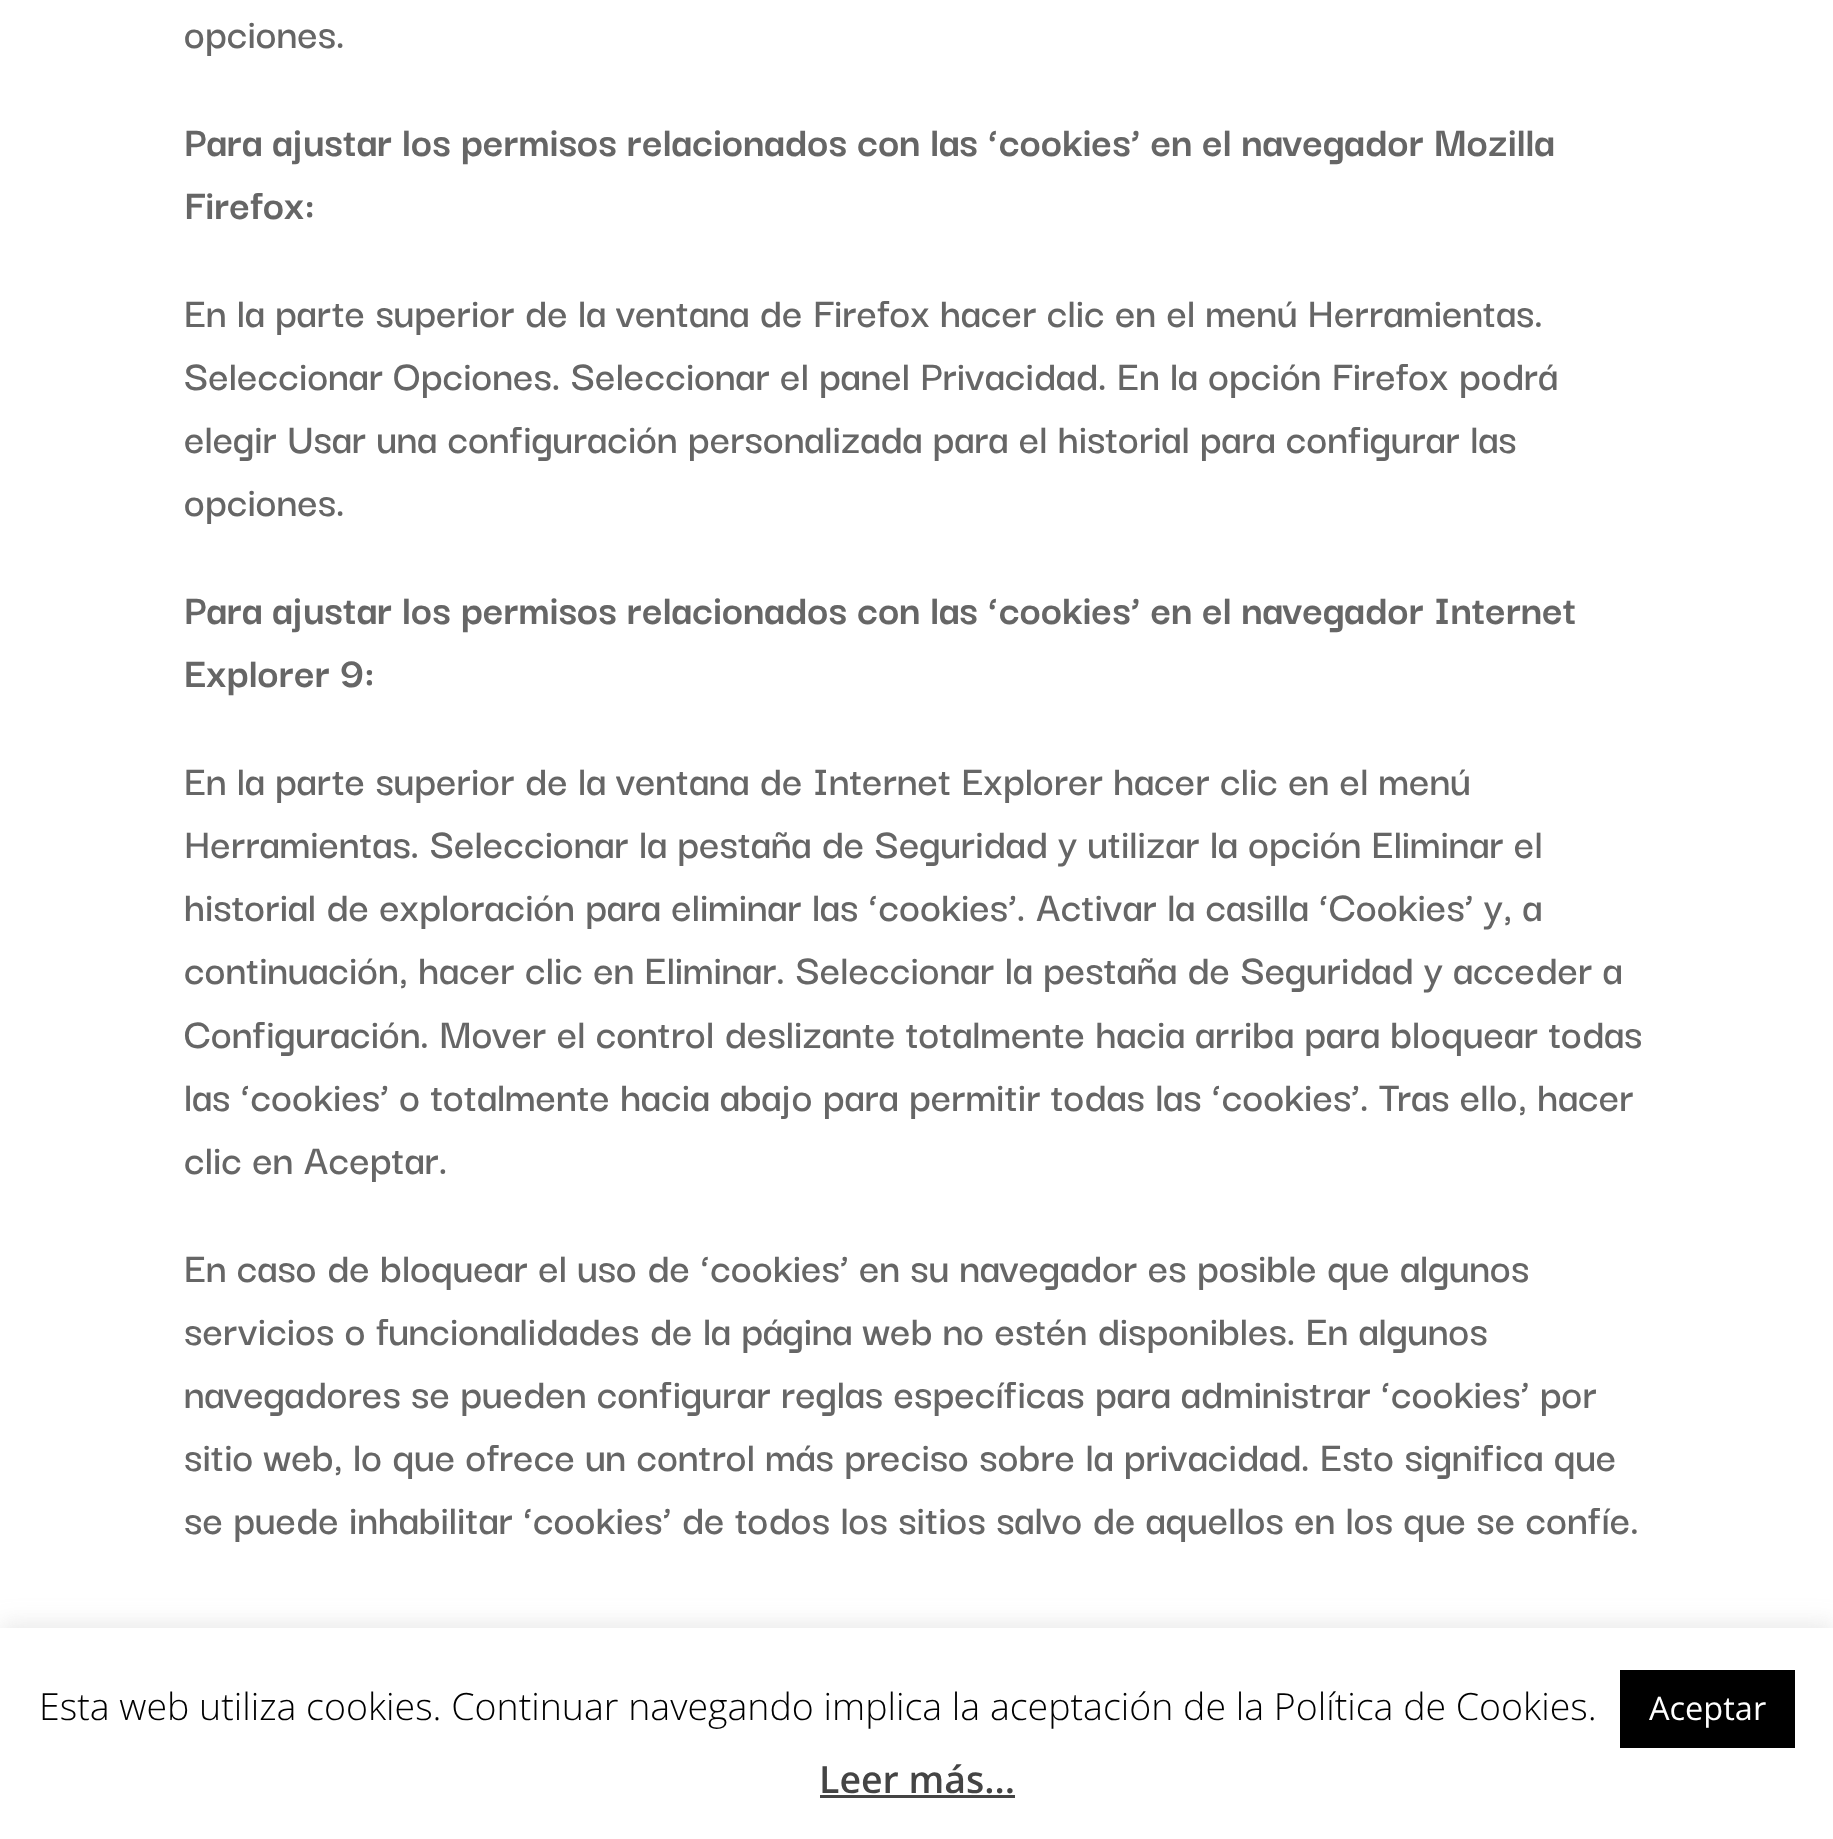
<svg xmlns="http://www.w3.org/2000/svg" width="1833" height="1839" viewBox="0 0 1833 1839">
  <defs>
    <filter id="blur1" x="-50%" y="-200%" width="200%" height="500%"><feGaussianBlur stdDeviation="12.5"/></filter>
  </defs>
  <rect width="100%" height="100%" fill="#ffffff"/>
  <text x="184" y="48" font-family="Darker Grotesque" font-size="45" font-weight="600" fill="#666666">opciones.</text>
  <text x="184" y="156" font-family="Darker Grotesque" font-size="45" font-weight="bold" fill="#666666">Para ajustar los permisos relacionados con las ‘cookies’ en el navegador Mozilla</text>
  <text x="184" y="219" font-family="Darker Grotesque" font-size="45" font-weight="bold" fill="#666666">Firefox:</text>
  <text x="184" y="327" font-family="Darker Grotesque" font-size="45" font-weight="600" fill="#666666">En la parte superior de la ventana de Firefox hacer clic en el menú Herramientas.</text>
  <text x="184" y="390" font-family="Darker Grotesque" font-size="45" font-weight="600" fill="#666666">Seleccionar Opciones. Seleccionar el panel Privacidad. En la opción Firefox podrá</text>
  <text x="184" y="453" font-family="Darker Grotesque" font-size="45" font-weight="600" fill="#666666">elegir Usar una configuración personalizada para el historial para configurar las</text>
  <text x="184" y="516" font-family="Darker Grotesque" font-size="45" font-weight="600" fill="#666666">opciones.</text>
  <text x="184" y="624" font-family="Darker Grotesque" font-size="45" font-weight="bold" fill="#666666">Para ajustar los permisos relacionados con las ‘cookies’ en el navegador Internet</text>
  <text x="184" y="687" font-family="Darker Grotesque" font-size="45" font-weight="bold" fill="#666666">Explorer 9:</text>
  <text x="184" y="795" font-family="Darker Grotesque" font-size="45" font-weight="600" fill="#666666">En la parte superior de la ventana de Internet Explorer hacer clic en el menú</text>
  <text x="184" y="858" font-family="Darker Grotesque" font-size="45" font-weight="600" fill="#666666">Herramientas. Seleccionar la pestaña de Seguridad y utilizar la opción Eliminar el</text>
  <text x="184" y="921" font-family="Darker Grotesque" font-size="45" font-weight="600" fill="#666666">historial de exploración para eliminar las ‘cookies’. Activar la casilla ‘Cookies’ y, a</text>
  <text x="184" y="984" font-family="Darker Grotesque" font-size="45" font-weight="600" fill="#666666">continuación, hacer clic en Eliminar. Seleccionar la pestaña de Seguridad y acceder a</text>
  <text x="184" y="1048" font-family="Darker Grotesque" font-size="45" font-weight="600" fill="#666666">Configuración. Mover el control deslizante totalmente hacia arriba para bloquear todas</text>
  <text x="184" y="1111" font-family="Darker Grotesque" font-size="45" font-weight="600" fill="#666666">las ‘cookies’ o totalmente hacia abajo para permitir todas las ‘cookies’. Tras ello, hacer</text>
  <text x="184" y="1174" font-family="Darker Grotesque" font-size="45" font-weight="600" fill="#666666">clic en Aceptar.</text>
  <text x="184" y="1282" font-family="Darker Grotesque" font-size="45" font-weight="600" fill="#666666">En caso de bloquear el uso de ‘cookies’ en su navegador es posible que algunos</text>
  <text x="184" y="1345" font-family="Darker Grotesque" font-size="45" font-weight="600" fill="#666666">servicios o funcionalidades de la página web no estén disponibles. En algunos</text>
  <text x="184" y="1408" font-family="Darker Grotesque" font-size="45" font-weight="600" fill="#666666">navegadores se pueden configurar reglas específicas para administrar ‘cookies’ por</text>
  <text x="184" y="1471" font-family="Darker Grotesque" font-size="45" font-weight="600" fill="#666666">sitio web, lo que ofrece un control más preciso sobre la privacidad. Esto significa que</text>
  <text x="184" y="1534" font-family="Darker Grotesque" font-size="45" font-weight="600" fill="#666666">se puede inhabilitar ‘cookies’ de todos los sitios salvo de aquellos en los que se confíe.</text>
  <rect x="0" y="1625" width="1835" height="213" fill="#acabab" fill-opacity="0.3" filter="url(#blur1)"/>
  <rect x="0" y="1628" width="1833" height="211" fill="#ffffff"/>
  <text x="39" y="1720" font-family="Open Sans" font-size="37.5" font-weight="300" fill="#000000">Esta web utiliza cookies. Continuar navegando implica la aceptación de la Política de Cookies.</text>
  <rect x="1620" y="1670" width="175" height="78" fill="#000000"/>
  <text x="1649" y="1720" font-family="Open Sans" font-size="32.5" fill="#ffffff">Aceptar</text>
  <text x="819" y="1793" font-family="Open Sans" font-size="37.5" font-weight="600" fill="#444444">Leer más...</text>
  <rect x="820" y="1795" width="195" height="3" fill="#444444"/>
</svg>
